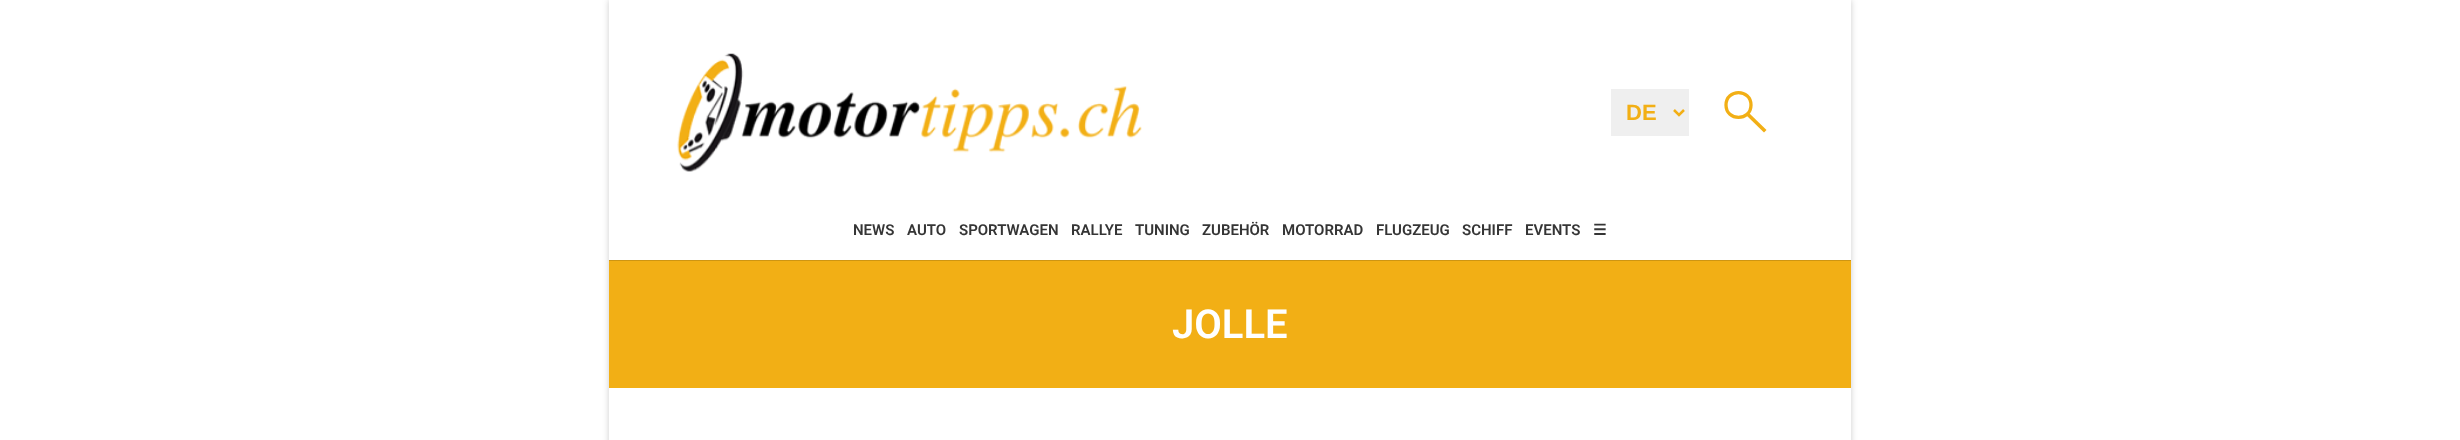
<svg xmlns="http://www.w3.org/2000/svg" width="2460" height="440" viewBox="0 0 2460 440">
  <defs>
    <clipPath id="clip1"><path d="M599 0H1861V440H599ZM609 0H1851V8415H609Z" clip-rule="evenodd"/></clipPath>
    <filter id="blur1" x="-50%" y="-200%" width="200%" height="500%"><feGaussianBlur stdDeviation="3"/></filter>
  </defs>
  <rect width="100%" height="100%" fill="#ffffff"/>
  <g clip-path="url(#clip1)">
    <rect x="609" y="0" width="1242" height="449" fill="#000000" fill-opacity="0.2" filter="url(#blur1)"/>
  </g>
  <rect x="609" y="260" width="1242" height="1" fill="#ce9512"/>
  <image x="677" y="53" width="465" height="119" href="img1.png"/>
  <rect x="1611" y="89" width="78" height="47" fill="#efefef"/>
  <path d="M1674 110L1679 115L1684 110" fill="none" stroke="#f2af15" stroke-width="2.5"/>
  <text x="1626" y="120" font-family="Liberation Sans" font-size="22" font-weight="bold" fill="#f2af15">DE</text>
  <path d="M1751 105C1751 121.5 1726 121.5 1726 105C1726 88.5 1751 88.5 1751 105Z" fill="none" stroke="#f2af15" stroke-width="3.3"/>
  <path d="M1748.5 112.5L1766.5 130L1764 132.5L1746 115Z" fill="#f2af15"/>
  <text x="853" y="235" font-family="Roboto" font-size="15" font-weight="600" fill="#353535">NEWS</text>
  <text x="907" y="235" font-family="Roboto" font-size="15" font-weight="600" fill="#353535">AUTO</text>
  <text x="959" y="235" font-family="Roboto" font-size="15" font-weight="600" fill="#353535">SPORTWAGEN</text>
  <text x="1071" y="235" font-family="Roboto" font-size="15" font-weight="600" fill="#353535">RALLYE</text>
  <text x="1135" y="235" font-family="Roboto" font-size="15" font-weight="600" fill="#353535">TUNING</text>
  <text x="1202" y="235" font-family="Roboto" font-size="15" font-weight="600" fill="#353535">ZUBEHÖR</text>
  <text x="1282" y="235" font-family="Roboto" font-size="15" font-weight="600" fill="#353535">MOTORRAD</text>
  <text x="1376" y="235" font-family="Roboto" font-size="15" font-weight="600" fill="#353535">FLUGZEUG</text>
  <text x="1462" y="235" font-family="Roboto" font-size="15" font-weight="600" fill="#353535">SCHIFF</text>
  <text x="1525" y="235" font-family="Roboto" font-size="15" font-weight="600" fill="#353535">EVENTS</text>
  <text x="1593" y="235" font-family="DejaVu Sans" font-size="15" font-weight="bold" fill="#353535">☰</text>
  <rect x="609" y="261" width="1242" height="127" fill="#f2af15"/>
  <text x="1172" y="338" font-family="Roboto" font-size="40" font-weight="600" fill="#ffffff">JOLLE</text>
</svg>
